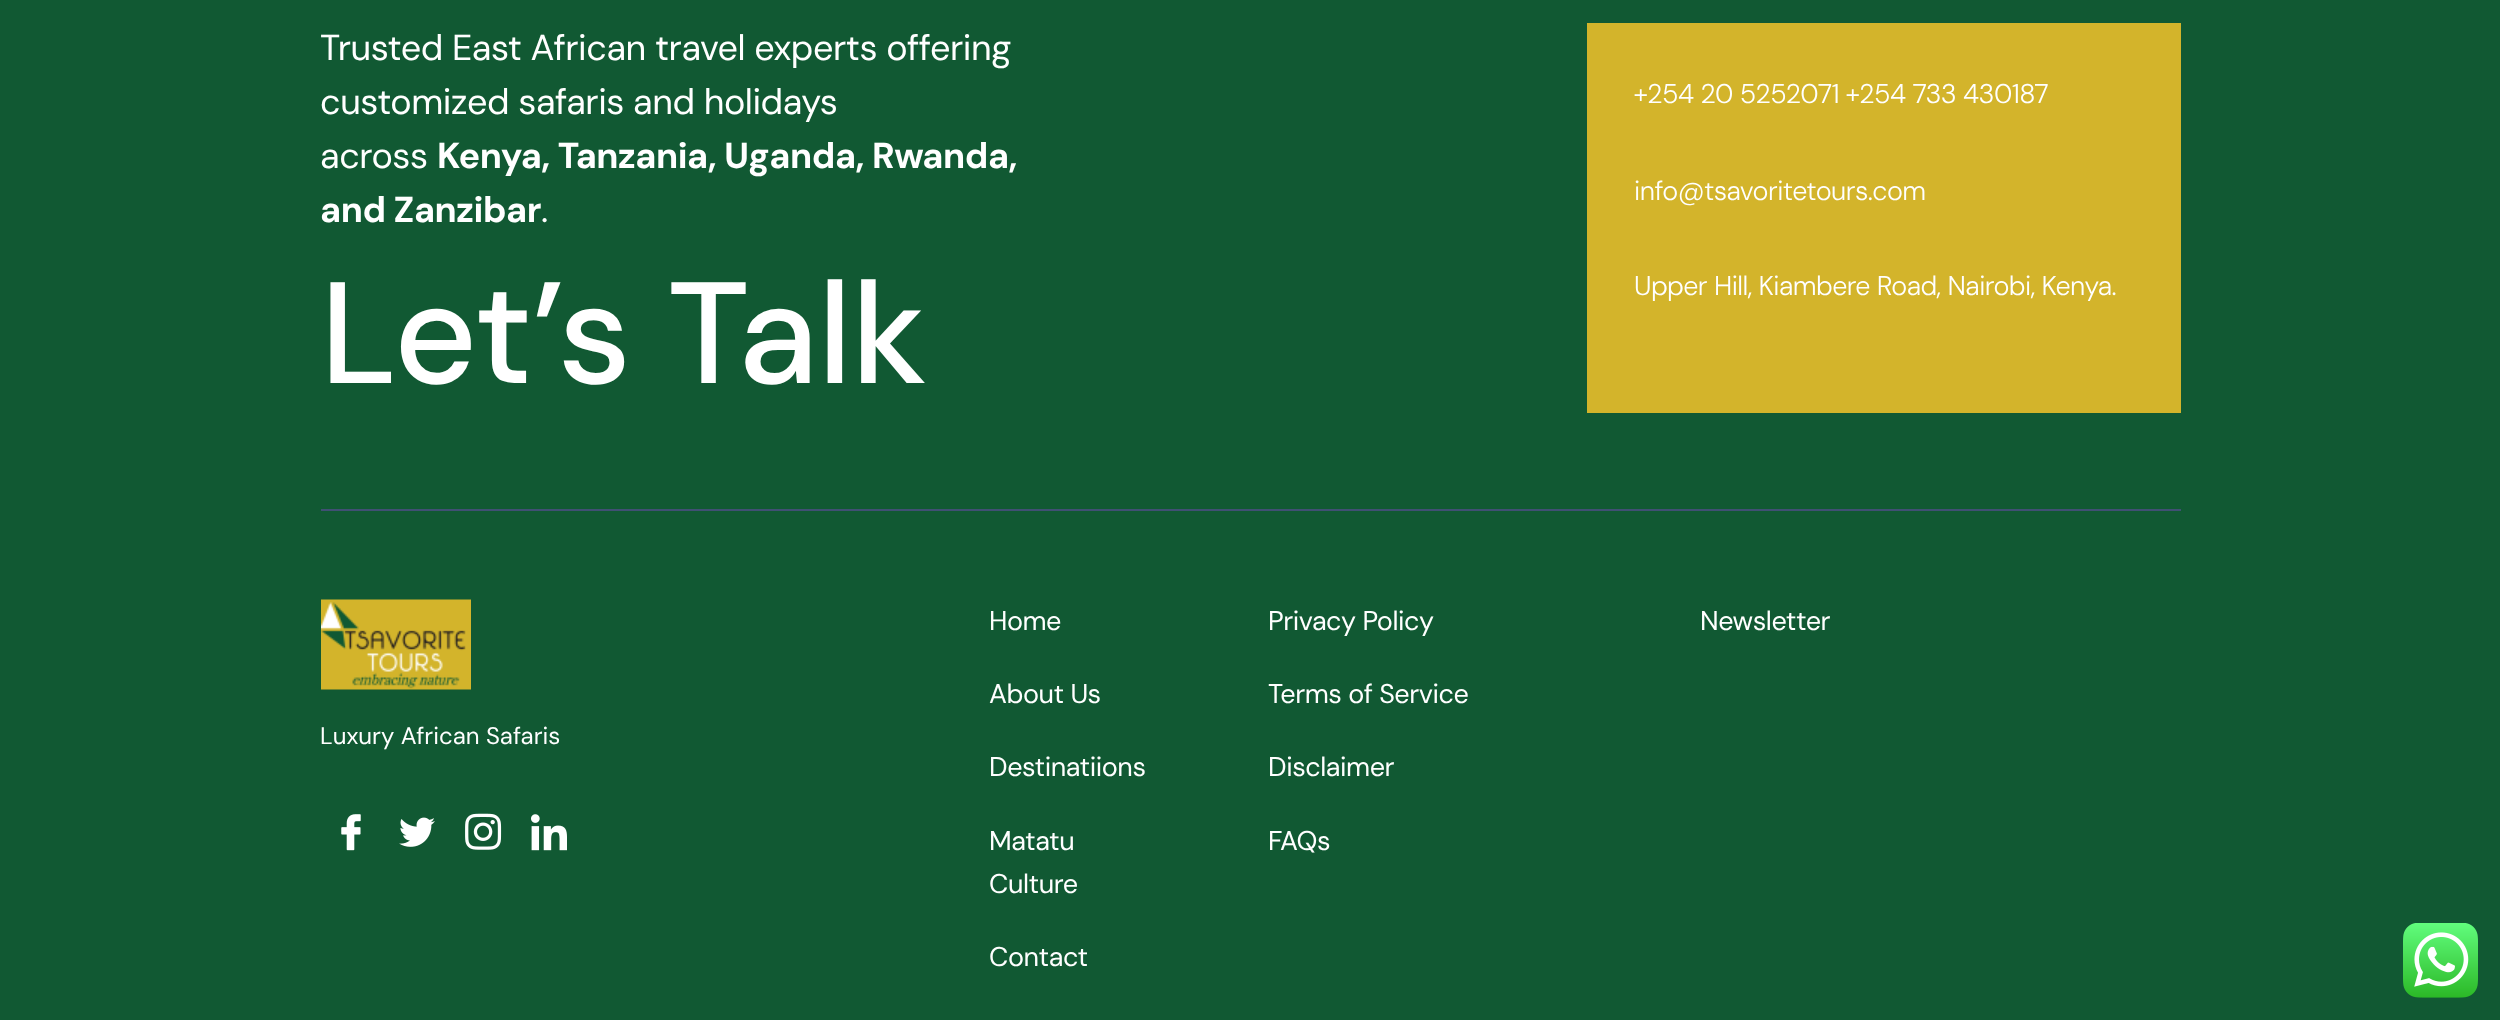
<svg xmlns="http://www.w3.org/2000/svg" width="2500" height="1020" viewBox="0 0 2500 1020">
  <rect width="100%" height="100%" fill="#115933"/>
  <text x="320" y="60" font-family="DM Sans" font-size="36" letter-spacing="-0.45" fill="#ffffff">Trusted East African travel experts offering</text>
  <text x="320" y="114" font-family="DM Sans" font-size="36" letter-spacing="-0.45" fill="#ffffff">customized safaris and holidays</text>
  <text x="320" y="168" font-family="DM Sans" font-size="36" letter-spacing="-0.45" fill="#ffffff">across</text>
  <text x="437" y="168" font-family="DM Sans" font-size="36" font-weight="bold" letter-spacing="-0.45" fill="#ffffff">Kenya, Tanzania, Uganda, Rwanda,</text>
  <text x="320" y="222" font-family="DM Sans" font-size="36" font-weight="bold" letter-spacing="-0.45" fill="#ffffff">and Zanzibar</text>
  <text x="541" y="222" font-family="DM Sans" font-size="36" letter-spacing="-0.45" fill="#ffffff">.</text>
  <text x="320" y="383" font-family="DM Sans" font-size="144" font-weight="500" letter-spacing="-0.45" fill="#ffffff">Let’s Talk</text>
  <rect x="1587" y="23" width="594" height="390" fill="#d3b42b"/>
  <text x="1634" y="103" font-family="DM Sans" font-size="27" font-weight="300" letter-spacing="-0.55" fill="#ffffff">+254 20 5252071 +254 733 430187</text>
  <text x="1634" y="200" font-family="DM Sans" font-size="27" font-weight="300" letter-spacing="-0.55" fill="#ffffff">info@tsavoritetours.com</text>
  <text x="1634" y="295" font-family="DM Sans" font-size="27" font-weight="300" letter-spacing="-0.55" fill="#ffffff">Upper Hill, Kiambere Road, Nairobi, Kenya.</text>
  <rect x="321" y="509" width="1860" height="2" fill="#405074"/>
  <text x="989" y="630" font-family="DM Sans" font-size="27" letter-spacing="-0.45" fill="#ffffff">Home</text>
  <text x="989" y="703" font-family="DM Sans" font-size="27" letter-spacing="-0.45" fill="#ffffff">About Us</text>
  <text x="989" y="776" font-family="DM Sans" font-size="27" letter-spacing="-0.45" fill="#ffffff">Destinatiions</text>
  <text x="989" y="850" font-family="DM Sans" font-size="27" letter-spacing="-0.45" fill="#ffffff">Matatu</text>
  <text x="989" y="893" font-family="DM Sans" font-size="27" letter-spacing="-0.45" fill="#ffffff">Culture</text>
  <text x="989" y="966" font-family="DM Sans" font-size="27" letter-spacing="-0.45" fill="#ffffff">Contact</text>
  <text x="1268" y="630" font-family="DM Sans" font-size="27" letter-spacing="-0.45" fill="#ffffff">Privacy Policy</text>
  <text x="1268" y="703" font-family="DM Sans" font-size="27" letter-spacing="-0.45" fill="#ffffff">Terms of Service</text>
  <text x="1268" y="776" font-family="DM Sans" font-size="27" letter-spacing="-0.45" fill="#ffffff">Disclaimer</text>
  <text x="1268" y="850" font-family="DM Sans" font-size="27" letter-spacing="-0.45" fill="#ffffff">FAQs</text>
  <text x="1700" y="630" font-family="DM Sans" font-size="27" letter-spacing="-0.45" fill="#ffffff">Newsletter</text>
  <image x="321" y="599" width="150" height="91" href="img1.png"/>
  <text x="320" y="744" font-family="DM Sans" font-size="24" fill="#ffffff">Luxury African Safaris</text>
  <image x="341" y="814" width="20" height="37" href="img2.png"/>
  <image x="399" y="817" width="36" height="30" href="img3.png"/>
  <image x="465" y="813" width="37" height="37" href="img4.png"/>
  <image x="531" y="814" width="36" height="37" href="img5.png"/>
  <image x="2403" y="923" width="75" height="75" href="img6.png"/>
</svg>
